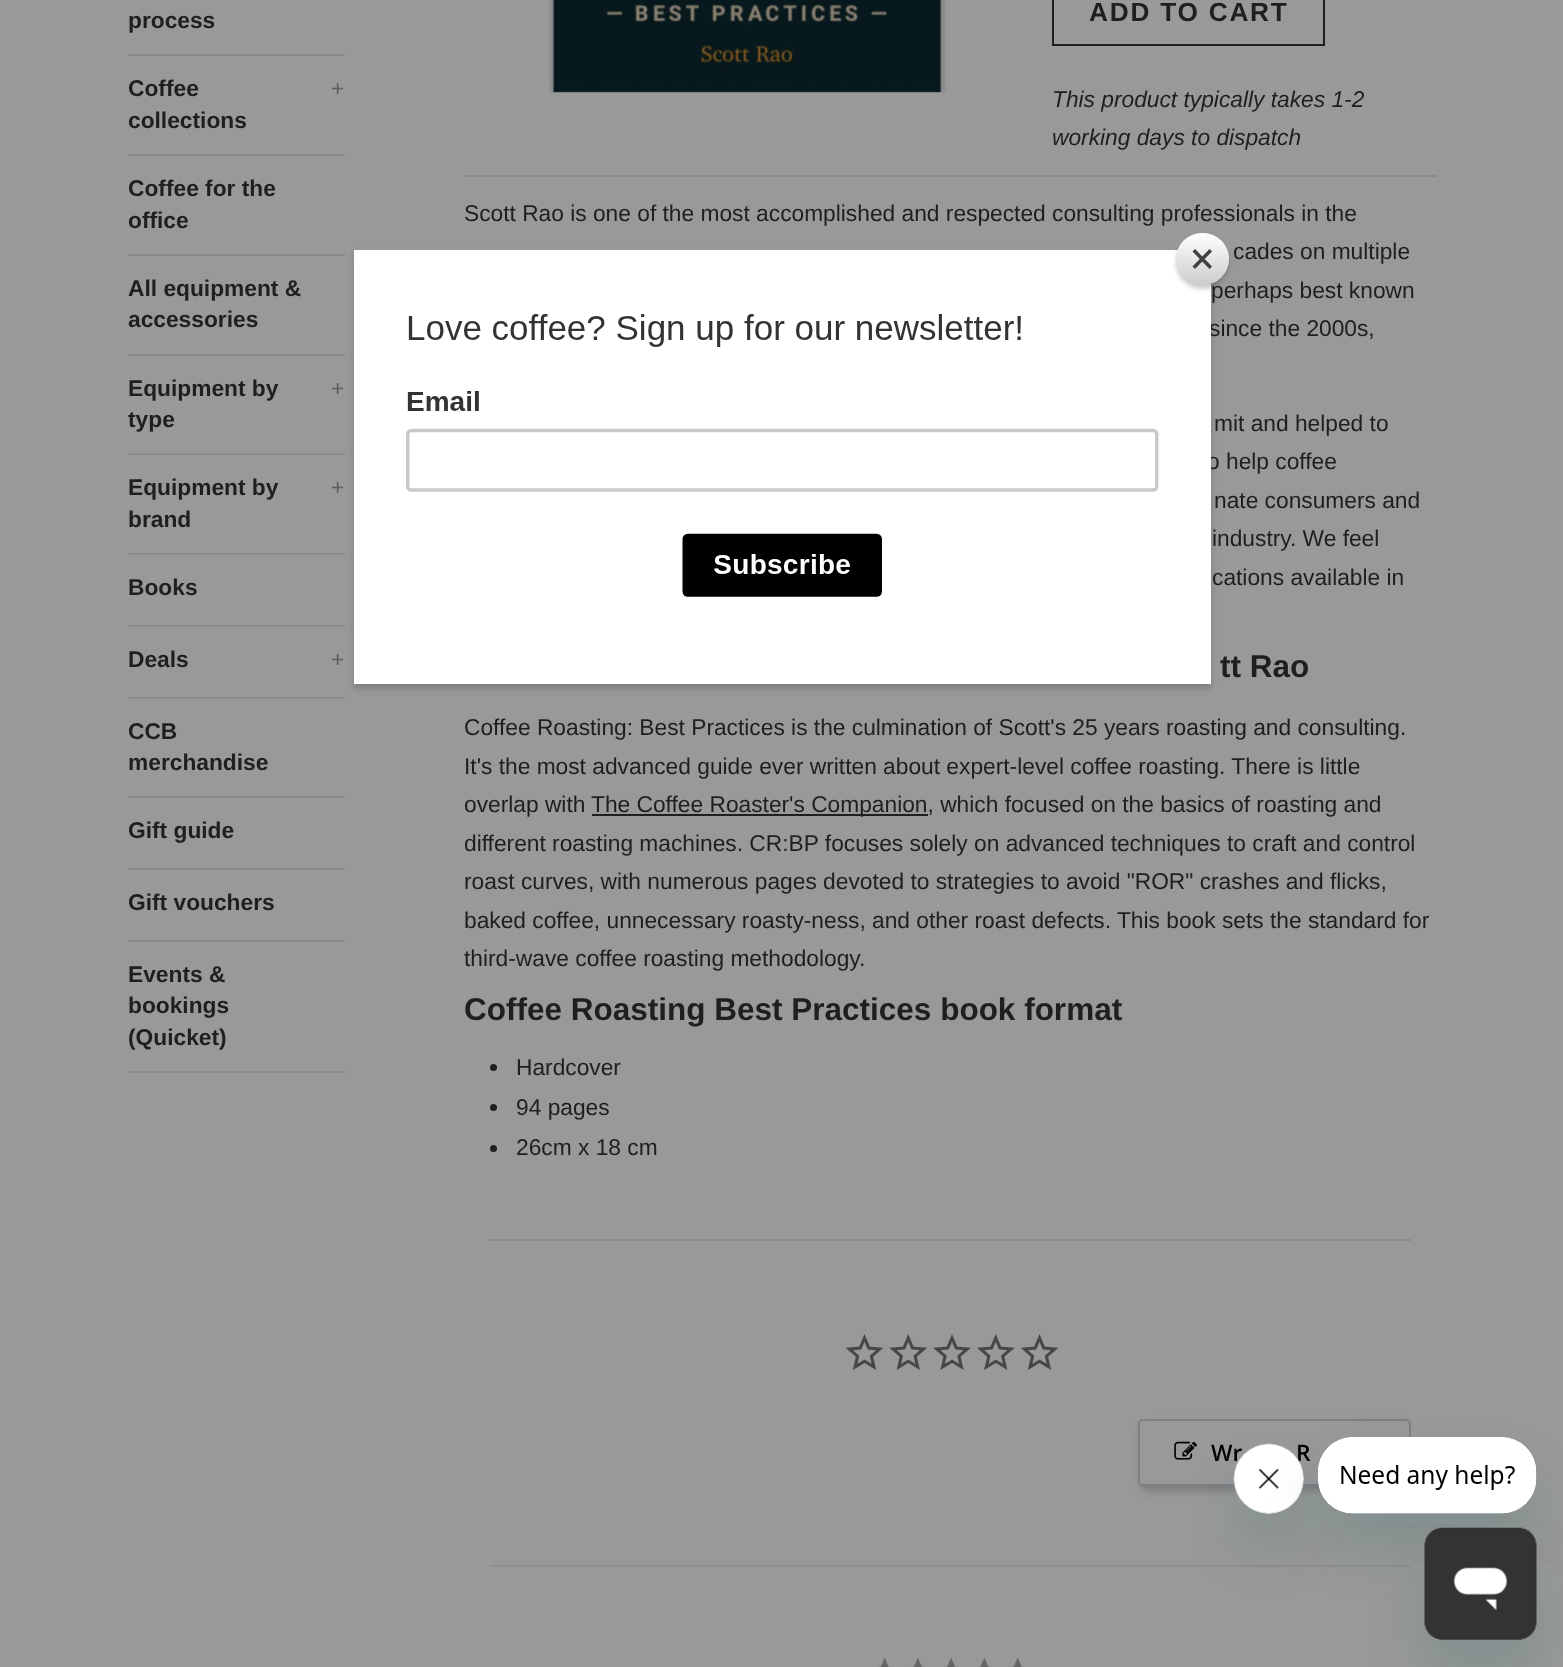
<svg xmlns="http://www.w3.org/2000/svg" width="1563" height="1667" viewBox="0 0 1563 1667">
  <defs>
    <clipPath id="clip1"><rect x="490" y="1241" width="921" height="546"/></clipPath>
    <clipPath id="clip2"><path d="M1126 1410H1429V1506H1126ZM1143 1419H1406C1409 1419 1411 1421 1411 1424V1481C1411 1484 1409 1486 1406 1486H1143C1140 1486 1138 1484 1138 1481V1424C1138 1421 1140 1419 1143 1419Z" clip-rule="evenodd"/></clipPath>
    <filter id="blur1" x="-50%" y="-200%" width="200%" height="500%"><feGaussianBlur stdDeviation="4.5"/></filter>
    <filter id="blur2" x="-50%" y="-200%" width="200%" height="500%"><feGaussianBlur stdDeviation="3.5"/></filter>
    <filter id="blur3" x="-50%" y="-200%" width="200%" height="500%"><feGaussianBlur stdDeviation="2"/></filter>
    <linearGradient id="g1" gradientUnits="userSpaceOnUse" x1="1202" y1="233" x2="1202" y2="285"><stop offset="0" stop-color="#ffffff" stop-opacity="0.2"/><stop offset="1" stop-color="#000000" stop-opacity="0.2"/></linearGradient>
    <filter id="blur4" x="-50%" y="-200%" width="200%" height="500%"><feGaussianBlur stdDeviation="26"/></filter>
  </defs>
  <rect width="100%" height="100%" fill="#999999"/>
  <text x="128" y="28" font-family="Liberation Sans" font-size="22.75" font-weight="bold" fill="#1f1f1f">process</text>
  <rect x="128" y="54" width="217" height="2" fill="#8b8b8b"/>
  <text x="128" y="96" font-family="Liberation Sans" font-size="22.75" font-weight="bold" fill="#1f1f1f">Coffee</text>
  <text x="331" y="96" font-family="Liberation Sans" font-size="22.75" fill="#5c5c5c">+</text>
  <text x="128" y="128" font-family="Liberation Sans" font-size="22.75" font-weight="bold" fill="#1f1f1f">collections</text>
  <rect x="128" y="154" width="217" height="2" fill="#8b8b8b"/>
  <text x="128" y="196" font-family="Liberation Sans" font-size="22.75" font-weight="bold" fill="#1f1f1f">Coffee for the</text>
  <text x="128" y="228" font-family="Liberation Sans" font-size="22.75" font-weight="bold" fill="#1f1f1f">office</text>
  <rect x="128" y="254" width="217" height="2" fill="#8b8b8b"/>
  <text x="128" y="296" font-family="Liberation Sans" font-size="22.75" font-weight="bold" fill="#1f1f1f">All equipment &amp;</text>
  <text x="128" y="327" font-family="Liberation Sans" font-size="22.75" font-weight="bold" fill="#1f1f1f">accessories</text>
  <rect x="128" y="354" width="217" height="2" fill="#8b8b8b"/>
  <text x="128" y="396" font-family="Liberation Sans" font-size="22.75" font-weight="bold" fill="#1f1f1f">Equipment by</text>
  <text x="331" y="396" font-family="Liberation Sans" font-size="22.75" fill="#5c5c5c">+</text>
  <text x="128" y="427" font-family="Liberation Sans" font-size="22.75" font-weight="bold" fill="#1f1f1f">type</text>
  <rect x="128" y="453" width="217" height="2" fill="#8b8b8b"/>
  <text x="128" y="495" font-family="Liberation Sans" font-size="22.75" font-weight="bold" fill="#1f1f1f">Equipment by</text>
  <text x="331" y="495" font-family="Liberation Sans" font-size="22.75" fill="#5c5c5c">+</text>
  <text x="128" y="527" font-family="Liberation Sans" font-size="22.75" font-weight="bold" fill="#1f1f1f">brand</text>
  <rect x="128" y="553" width="217" height="2" fill="#8b8b8b"/>
  <text x="128" y="595" font-family="Liberation Sans" font-size="22.75" font-weight="bold" fill="#1f1f1f">Books</text>
  <rect x="128" y="625" width="217" height="2" fill="#8b8b8b"/>
  <text x="128" y="667" font-family="Liberation Sans" font-size="22.75" font-weight="bold" fill="#1f1f1f">Deals</text>
  <text x="331" y="667" font-family="Liberation Sans" font-size="22.75" fill="#5c5c5c">+</text>
  <rect x="128" y="697" width="217" height="2" fill="#8b8b8b"/>
  <text x="128" y="739" font-family="Liberation Sans" font-size="22.75" font-weight="bold" fill="#1f1f1f">CCB</text>
  <text x="128" y="770" font-family="Liberation Sans" font-size="22.75" font-weight="bold" fill="#1f1f1f">merchandise</text>
  <rect x="128" y="796" width="217" height="2" fill="#8b8b8b"/>
  <text x="128" y="838" font-family="Liberation Sans" font-size="22.75" font-weight="bold" fill="#1f1f1f">Gift guide</text>
  <rect x="128" y="868" width="217" height="2" fill="#8b8b8b"/>
  <text x="128" y="910" font-family="Liberation Sans" font-size="22.75" font-weight="bold" fill="#1f1f1f">Gift vouchers</text>
  <rect x="128" y="940" width="217" height="2" fill="#8b8b8b"/>
  <rect x="128" y="1071" width="217" height="2" fill="#8b8b8b"/>
  <text x="128" y="982" font-family="Liberation Sans" font-size="22.75" font-weight="bold" fill="#1f1f1f">Events &amp;</text>
  <text x="128" y="1013" font-family="Liberation Sans" font-size="22.75" font-weight="bold" fill="#1f1f1f">bookings</text>
  <text x="128" y="1045" font-family="Liberation Sans" font-size="22.75" font-weight="bold" fill="#1f1f1f">(Quicket)</text>
  <image x="548" y="0" width="398" height="93" href="img1.png"/>
  <rect x="1053" y="-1" width="271" height="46" fill="none" stroke="#1f1f1f" stroke-width="2"/>
  <text x="1089" y="21" font-family="Liberation Sans" font-size="26.25" font-weight="bold" letter-spacing="1.75" fill="#1f1f1f">ADD TO CART</text>
  <text x="1052" y="107" font-family="Liberation Sans" font-size="22.75" font-style="italic" fill="#1f1f1f">This product typically takes 1-2</text>
  <text x="1052" y="145" font-family="Liberation Sans" font-size="22.75" font-style="italic" fill="#1f1f1f">working days to dispatch</text>
  <rect x="464" y="175" width="973" height="2" fill="#8b8b8b"/>
  <text x="464" y="221" font-family="Liberation Sans" font-size="22.75" fill="#1f1f1f">Scott Rao is one of the most accomplished and respected consulting professionals in the</text>
  <text x="1233" y="259" font-family="Liberation Sans" font-size="22.75" fill="#1f1f1f">cades on multiple</text>
  <text x="1211" y="298" font-family="Liberation Sans" font-size="22.75" fill="#1f1f1f">perhaps best known</text>
  <text x="1209" y="336" font-family="Liberation Sans" font-size="22.75" fill="#1f1f1f">since the 2000s,</text>
  <text x="1214" y="431" font-family="Liberation Sans" font-size="22.75" fill="#1f1f1f">mit and helped to</text>
  <text x="1207" y="469" font-family="Liberation Sans" font-size="22.75" fill="#1f1f1f">o help coffee</text>
  <text x="1214" y="508" font-family="Liberation Sans" font-size="22.75" fill="#1f1f1f">nate consumers and</text>
  <text x="1212" y="546" font-family="Liberation Sans" font-size="22.75" fill="#1f1f1f">industry. We feel</text>
  <text x="1212" y="585" font-family="Liberation Sans" font-size="22.75" fill="#1f1f1f">cations available in</text>
  <text x="1220" y="677" font-family="Liberation Sans" font-size="31.5" font-weight="bold" fill="#1f1f1f">tt Rao</text>
  <text x="464" y="735" font-family="Liberation Sans" font-size="22.75" fill="#1f1f1f">Coffee Roasting: Best Practices is the culmination of Scott's 25 years roasting and consulting.</text>
  <text x="464" y="774" font-family="Liberation Sans" font-size="22.75" fill="#1f1f1f">It's the most advanced guide ever written about expert-level coffee roasting. There is little</text>
  <text x="464" y="812" font-family="Liberation Sans" font-size="22.75" fill="#1f1f1f">overlap with</text>
  <rect x="592" y="814" width="336" height="2" fill="#1f1f1f"/>
  <text x="591" y="812" font-family="Liberation Sans" font-size="22.75" fill="#1f1f1f">The Coffee Roaster's Companion, which focused on the basics of roasting and</text>
  <text x="464" y="851" font-family="Liberation Sans" font-size="22.75" fill="#1f1f1f">different roasting machines. CR:BP focuses solely on advanced techniques to craft and control</text>
  <text x="464" y="889" font-family="Liberation Sans" font-size="22.75" fill="#1f1f1f">roast curves, with numerous pages devoted to strategies to avoid "ROR" crashes and flicks,</text>
  <text x="464" y="928" font-family="Liberation Sans" font-size="22.75" fill="#1f1f1f">baked coffee, unnecessary roasty-ness, and other roast defects. This book sets the standard for</text>
  <text x="464" y="966" font-family="Liberation Sans" font-size="22.75" fill="#1f1f1f">third-wave coffee roasting methodology.</text>
  <text x="464" y="1020" font-family="Liberation Sans" font-size="31.5" font-weight="bold" fill="#1f1f1f">Coffee Roasting Best Practices book format</text>
  <circle cx="493.5" cy="1067.5" r="3.5" fill="#1f1f1f"/>
  <text x="516" y="1075" font-family="Liberation Sans" font-size="22.75" fill="#1f1f1f">Hardcover</text>
  <circle cx="493.5" cy="1107.5" r="3.5" fill="#1f1f1f"/>
  <text x="516" y="1115" font-family="Liberation Sans" font-size="22.75" fill="#1f1f1f">94 pages</text>
  <circle cx="493.5" cy="1148.5" r="3.5" fill="#1f1f1f"/>
  <text x="516" y="1155" font-family="Liberation Sans" font-size="22.75" fill="#1f1f1f">26cm x 18 cm</text>
  <rect x="490" y="1239" width="921" height="2" fill="#8b8b8b"/>
  <image x="845" y="1334" width="39" height="36" href="img2.png"/>
  <image x="889" y="1334" width="38" height="36" href="img3.png"/>
  <image x="933" y="1334" width="38" height="36" href="img4.png"/>
  <image x="977" y="1334" width="38" height="36" href="img5.png"/>
  <image x="1020" y="1334" width="39" height="36" href="img2.png"/>
  <g clip-path="url(#clip1)">
    <g clip-path="url(#clip2)">
      <rect x="1141" y="1425" width="273" height="66" rx="5" fill="#525252" fill-opacity="0.42" filter="url(#blur1)"/>
    </g>
  </g>
  <rect x="1139" y="1420" width="271" height="65" rx="4" fill="none" stroke="#7a8086" stroke-width="2"/>
  <image x="1174" y="1441" width="23" height="19" href="img6.png"/>
  <text x="1211" y="1461" font-family="Open Sans" font-size="22.75" font-weight="600" fill="#000000">Wr</text>
  <text x="1296" y="1461" font-family="Open Sans" font-size="22.75" font-weight="600" fill="#000000">R</text>
  <rect x="490" y="1565" width="921" height="2" fill="#8f8f8f"/>
  <image x="878" y="1657" width="146" height="10" href="img7.png"/>
  <rect x="354" y="254" width="857" height="434" fill="#000000" fill-opacity="0.2" filter="url(#blur2)"/>
  <image x="354" y="250" width="857" height="434" href="img8.png"/>
  <rect x="1176" y="236" width="53" height="53" rx="26.5" fill="#000000" fill-opacity="0.2" filter="url(#blur3)"/>
  <rect x="1176" y="233" width="53" height="52" rx="26" fill="#ffffff"/>
  <rect x="1176" y="233" width="53" height="52" rx="26" fill="url(#g1)"/>
  <path d="M1209.5 249L1212 251.5L1195 269L1192.5 266.5Z" fill="#414141"/>
  <path d="M1192.5 251.5L1195 249L1212 266.5L1209.5 269Z" fill="#414141"/>
  <rect x="1234" y="1479" width="70" height="70" rx="35" fill="#17494d" fill-opacity="0.15" filter="url(#blur4)"/>
  <image x="1233" y="1443" width="71" height="71" href="img10.png"/>
  <rect x="1318" y="1472" width="219" height="77" rx="35" fill="#17494d" fill-opacity="0.15" filter="url(#blur4)"/>
  <image x="1318" y="1437" width="219" height="77" href="img9.png"/>
  <rect x="1425" y="1563" width="112" height="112" rx="18" fill="#17494d" fill-opacity="0.15" filter="url(#blur4)"/>
  <image x="1424" y="1527" width="113" height="113" href="img11.png"/>
</svg>
